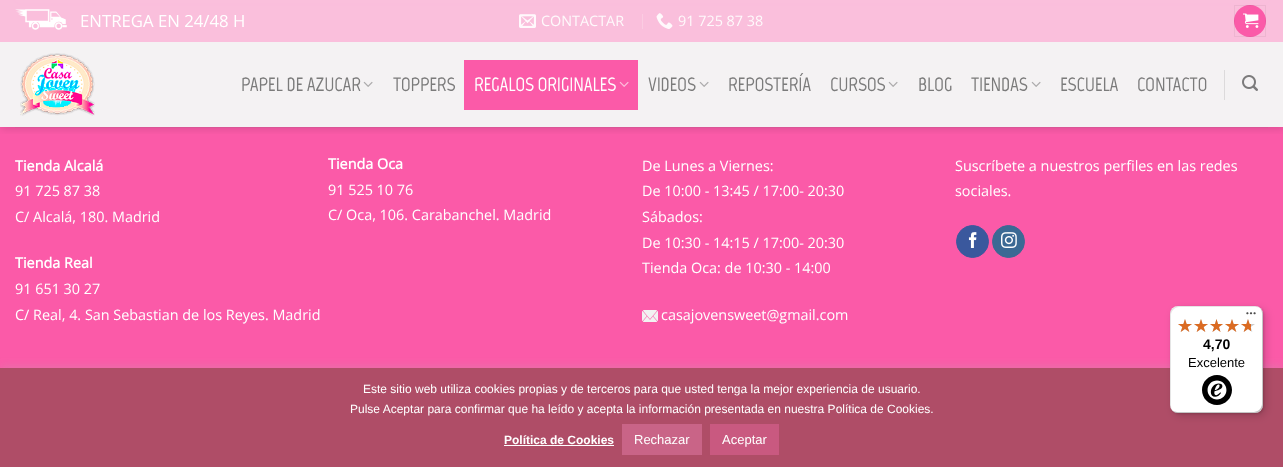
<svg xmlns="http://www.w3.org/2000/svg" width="1283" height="467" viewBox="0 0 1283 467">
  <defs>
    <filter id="blur1" x="-50%" y="-200%" width="200%" height="500%"><feGaussianBlur stdDeviation="3"/></filter>
    <clipPath id="clip1"><rect x="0" y="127" width="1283" height="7"/></clipPath>
    <filter id="blur2" x="-50%" y="-200%" width="200%" height="500%"><feGaussianBlur stdDeviation="5"/></filter>
    <filter id="blur3" x="-50%" y="-200%" width="200%" height="500%"><feGaussianBlur stdDeviation="4"/></filter>
    <filter id="blur4" x="-50%" y="-200%" width="200%" height="500%"><feGaussianBlur stdDeviation="1"/></filter>
  </defs>
  <rect width="100%" height="100%" fill="#fb5aa8"/>
  <rect x="12" y="-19" width="1260" height="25" rx="10" fill="#000000" fill-opacity="0.23" filter="url(#blur1)"/>
  <rect x="16" y="-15" width="1252" height="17" rx="6" fill="#000000" fill-opacity="0.16" filter="url(#blur1)"/>
  <path d="M12.5-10.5H1271.5V-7C1271.5-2 1267 2.5 1262 2.5H22C17 2.5 12.5-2 12.5-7Z" fill="#f9f9f9" stroke="#dddddd"/>
  <rect x="15" y="67" width="1253" height="1" fill="#fc8cc2"/>
  <g clip-path="url(#clip1)">
    <rect x="1" y="1" width="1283" height="127" fill="#000000" fill-opacity="0.15" filter="url(#blur2)"/>
  </g>
  <rect x="0" y="0" width="1283" height="127" fill="#f4f4f4" fill-opacity="0.88"/>
  <rect x="0" y="0" width="1283" height="127" fill="#f4f4f4" fill-opacity="0.88"/>
  <rect x="0" y="0" width="1283" height="42" fill="#fcabd2" fill-opacity="0.72"/>
  <image x="15" y="9" width="52" height="21" href="img1.png"/>
  <text x="80" y="27" font-family="Open Sans" font-size="16.75" fill="#ffffff">ENTREGA EN 24/48 H</text>
  <image x="519" y="14" width="17" height="14" href="img2.png"/>
  <text x="541" y="26" font-family="Open Sans" font-size="14.4" fill="#fef9fb">CONTACTAR</text>
  <rect x="642" y="14" width="1" height="15" fill="#fbcce2"/>
  <image x="656" y="13" width="17" height="16" href="img3.png"/>
  <text x="678" y="26" font-family="Open Sans" font-size="14.4" fill="#fef9fb">91 725 87 38</text>
  <circle cx="1250" cy="21" r="16" fill="#fb5aa8"/>
  <rect x="1234.5" y="5.5" width="31" height="31" fill="none" stroke="#000000" stroke-opacity="0.05"/>
  <image x="1243" y="13" width="16" height="15" href="img4.png"/>
  <image x="20" y="53" width="75" height="63" href="img5.png"/>
  <text x="241" y="91" font-family="Marvel" font-size="19.25" font-weight="bold" letter-spacing="-0.2" fill="#7b7b7b">PAPEL DE AZUCAR</text>
  <image x="363" y="81" width="10" height="6" href="img6.png"/>
  <text x="393" y="91" font-family="Marvel" font-size="19.25" font-weight="bold" letter-spacing="-0.2" fill="#7b7b7b">TOPPERS</text>
  <rect x="464" y="60" width="174" height="50" fill="#fb5aa8"/>
  <text x="474" y="91" font-family="Marvel" font-size="19.25" font-weight="bold" letter-spacing="-0.2" fill="#ffffff">REGALOS ORIGINALES</text>
  <image x="619" y="81" width="10" height="6" href="img7.png"/>
  <text x="648" y="91" font-family="Marvel" font-size="19.25" font-weight="bold" letter-spacing="-0.2" fill="#7b7b7b">VIDEOS</text>
  <image x="699" y="81" width="10" height="6" href="img6.png"/>
  <text x="728" y="91" font-family="Marvel" font-size="19.25" font-weight="bold" letter-spacing="-0.2" fill="#7b7b7b">REPOSTERÍA</text>
  <text x="830" y="91" font-family="Marvel" font-size="19.25" font-weight="bold" letter-spacing="-0.2" fill="#7b7b7b">CURSOS</text>
  <image x="888" y="81" width="10" height="6" href="img6.png"/>
  <text x="918" y="91" font-family="Marvel" font-size="19.25" font-weight="bold" letter-spacing="-0.2" fill="#7b7b7b">BLOG</text>
  <text x="971" y="91" font-family="Marvel" font-size="19.25" font-weight="bold" letter-spacing="-0.2" fill="#7b7b7b">TIENDAS</text>
  <image x="1031" y="81" width="10" height="6" href="img6.png"/>
  <text x="1060" y="91" font-family="Marvel" font-size="19.25" font-weight="bold" letter-spacing="-0.2" fill="#7b7b7b">ESCUELA</text>
  <text x="1137" y="91" font-family="Marvel" font-size="19.25" font-weight="bold" letter-spacing="-0.2" fill="#7b7b7b">CONTACTO</text>
  <rect x="1224" y="70" width="1" height="30" fill="#dcdadb"/>
  <image x="1242" y="75" width="16" height="16" href="img8.png"/>
  <rect x="15" y="127" width="1253" height="1" fill="#777777" fill-opacity="0.1"/>
  <text x="15" y="171" font-family="Open Sans" font-size="14.4" font-weight="bold" fill="#ffffff">Tienda Alcalá</text>
  <text x="15" y="196" font-family="Open Sans" font-size="14.4" fill="#ffffff">91 725 87 38</text>
  <text x="15" y="222" font-family="Open Sans" font-size="14.4" fill="#ffffff">C/ Alcalá, 180. Madrid</text>
  <text x="15" y="268" font-family="Open Sans" font-size="14.4" font-weight="bold" fill="#ffffff">Tienda Real</text>
  <text x="15" y="294" font-family="Open Sans" font-size="14.4" fill="#ffffff">91 651 30 27</text>
  <text x="15" y="320" font-family="Open Sans" font-size="14.4" fill="#ffffff">C/ Real, 4. San Sebastian de los Reyes. Madrid</text>
  <text x="328" y="169" font-family="Open Sans" font-size="14.4" font-weight="bold" fill="#ffffff">Tienda Oca</text>
  <text x="328" y="195" font-family="Open Sans" font-size="14.4" fill="#ffffff">91 525 10 76</text>
  <text x="328" y="220" font-family="Open Sans" font-size="14.4" fill="#ffffff">C/ Oca, 106. Carabanchel. Madrid</text>
  <text x="642" y="171" font-family="Open Sans" font-size="14.4" fill="#ffffff">De Lunes a Viernes:</text>
  <text x="642" y="196" font-family="Open Sans" font-size="14.4" fill="#ffffff">De 10:00 - 13:45 / 17:00- 20:30</text>
  <text x="642" y="222" font-family="Open Sans" font-size="14.4" fill="#ffffff">Sábados:</text>
  <text x="642" y="248" font-family="Open Sans" font-size="14.4" fill="#ffffff">De 10:30 - 14:15 / 17:00- 20:30</text>
  <text x="642" y="273" font-family="Open Sans" font-size="14.4" fill="#ffffff">Tienda Oca: de 10:30 - 14:00</text>
  <image x="642" y="310" width="16" height="12" href="img9.png"/>
  <text x="661" y="320" font-family="Open Sans" font-size="14.4" fill="#ffffff">casajovensweet@gmail.com</text>
  <text x="955" y="171" font-family="Open Sans" font-size="14.4" fill="#ffffff">Suscríbete a nuestros perfiles en las redes</text>
  <text x="955" y="196" font-family="Open Sans" font-size="14.4" fill="#ffffff">sociales.</text>
  <circle cx="972.5" cy="241.5" r="16" fill="#3a589d" stroke="#3a589d"/>
  <image x="968" y="232" width="9" height="16" href="img10.png"/>
  <circle cx="1008.5" cy="241.5" r="16" fill="#3b6994" stroke="#3b6994"/>
  <image x="1001" y="232" width="16" height="16" href="img11.png"/>
  <rect x="0" y="367" width="1283" height="99" fill="#acabab" fill-opacity="0.3" filter="url(#blur2)"/>
  <rect x="0" y="368" width="1283" height="99" fill="#af4d67"/>
  <rect x="1173" y="309" width="93" height="107" rx="8" fill="#000000" fill-opacity="0.15" filter="url(#blur3)"/>
  <rect x="1171" y="307" width="93" height="107" rx="8" fill="#000000" fill-opacity="0.15" filter="url(#blur4)"/>
  <rect x="1170" y="306" width="93" height="107" rx="8" fill="#ffffff"/>
  <path d="M1179 307H1256C1258 307 1260 308 1262 310C1260 308 1258 306 1255 306H1178C1174 306 1170 310 1170 314V405C1170 408 1172 410 1174 412C1172 410 1171 408 1171 406V315C1171 311 1175 307 1179 307Z" fill="#000000" fill-opacity="0.1"/>
  <path d="M1171 409C1173 411 1175 413 1178 413H1255C1259 413 1263 409 1263 405V314C1263 311 1261 309 1259 307C1261 309 1262 311 1262 313V404C1262 408 1258 412 1254 412H1177C1175 412 1173 411 1171 409Z" fill="#000000" fill-opacity="0.2"/>
  <path d="M1172 410C1173 412 1176 413 1178 413H1255C1259 413 1263 409 1263 405V314C1263 312 1262 309 1260 308C1261 309 1262 311 1262 313V404C1262 409 1259 412 1254 412H1177C1175 412 1173 411 1172 410Z" fill="#323232" fill-opacity="0.2"/>
  <path d="M1262 314C1262 309 1259 306 1254 306H1255C1259 306 1263 310 1263 314V405C1263 409 1259 413 1255 413H1178C1174 413 1170 409 1170 405V404C1170 409 1173 412 1178 412H1254C1259 412 1262 409 1262 404Z" fill="#ffffff" fill-opacity="0.3"/>
  <image x="1246" y="312" width="10" height="3" href="img12.png"/>
  <image x="1178" y="319" width="14" height="13" href="img13.png"/>
  <image x="1194" y="319" width="14" height="13" href="img13.png"/>
  <image x="1210" y="319" width="13" height="13" href="img14.png"/>
  <image x="1225" y="319" width="14" height="13" href="img13.png"/>
  <image x="1241" y="319" width="14" height="13" href="img13.png"/>
  <image x="1178" y="319" width="14" height="13" href="img15.png"/>
  <image x="1194" y="319" width="14" height="13" href="img15.png"/>
  <image x="1210" y="319" width="13" height="13" href="img16.png"/>
  <image x="1225" y="319" width="14" height="13" href="img15.png"/>
  <image x="1241" y="319" width="10" height="13" href="img17.png"/>
  <text x="1203" y="349" font-family="Liberation Sans" font-size="14" font-weight="bold" fill="#000000">4,70</text>
  <text x="1188" y="367" font-family="Liberation Sans" font-size="13" fill="#000000">Excelente</text>
  <image x="1202" y="375" width="30" height="30" href="img18.png"/>
  <text x="363" y="393" font-family="Liberation Sans" font-size="12" fill="#ffffff">Este sitio web utiliza cookies propias y de terceros para que usted tenga la mejor experiencia de usuario.</text>
  <text x="350" y="413" font-family="Liberation Sans" font-size="12" fill="#ffffff">Pulse Aceptar para confirmar que ha leído y acepta la información presentada en nuestra Política de Cookies.</text>
  <text x="504" y="444" font-family="Liberation Sans" font-size="12" font-weight="bold" fill="#ffffff">Política de Cookies</text>
  <rect x="504" y="445" width="110" height="1" fill="#ffffff"/>
  <rect x="622" y="424" width="80" height="31" fill="#c96487"/>
  <text x="634" y="444" font-family="Liberation Sans" font-size="13" fill="#ffffff">Rechazar</text>
  <rect x="710" y="424" width="69" height="31" fill="#c95980"/>
  <text x="722" y="444" font-family="Liberation Sans" font-size="13" fill="#ffffff">Aceptar</text>
</svg>
